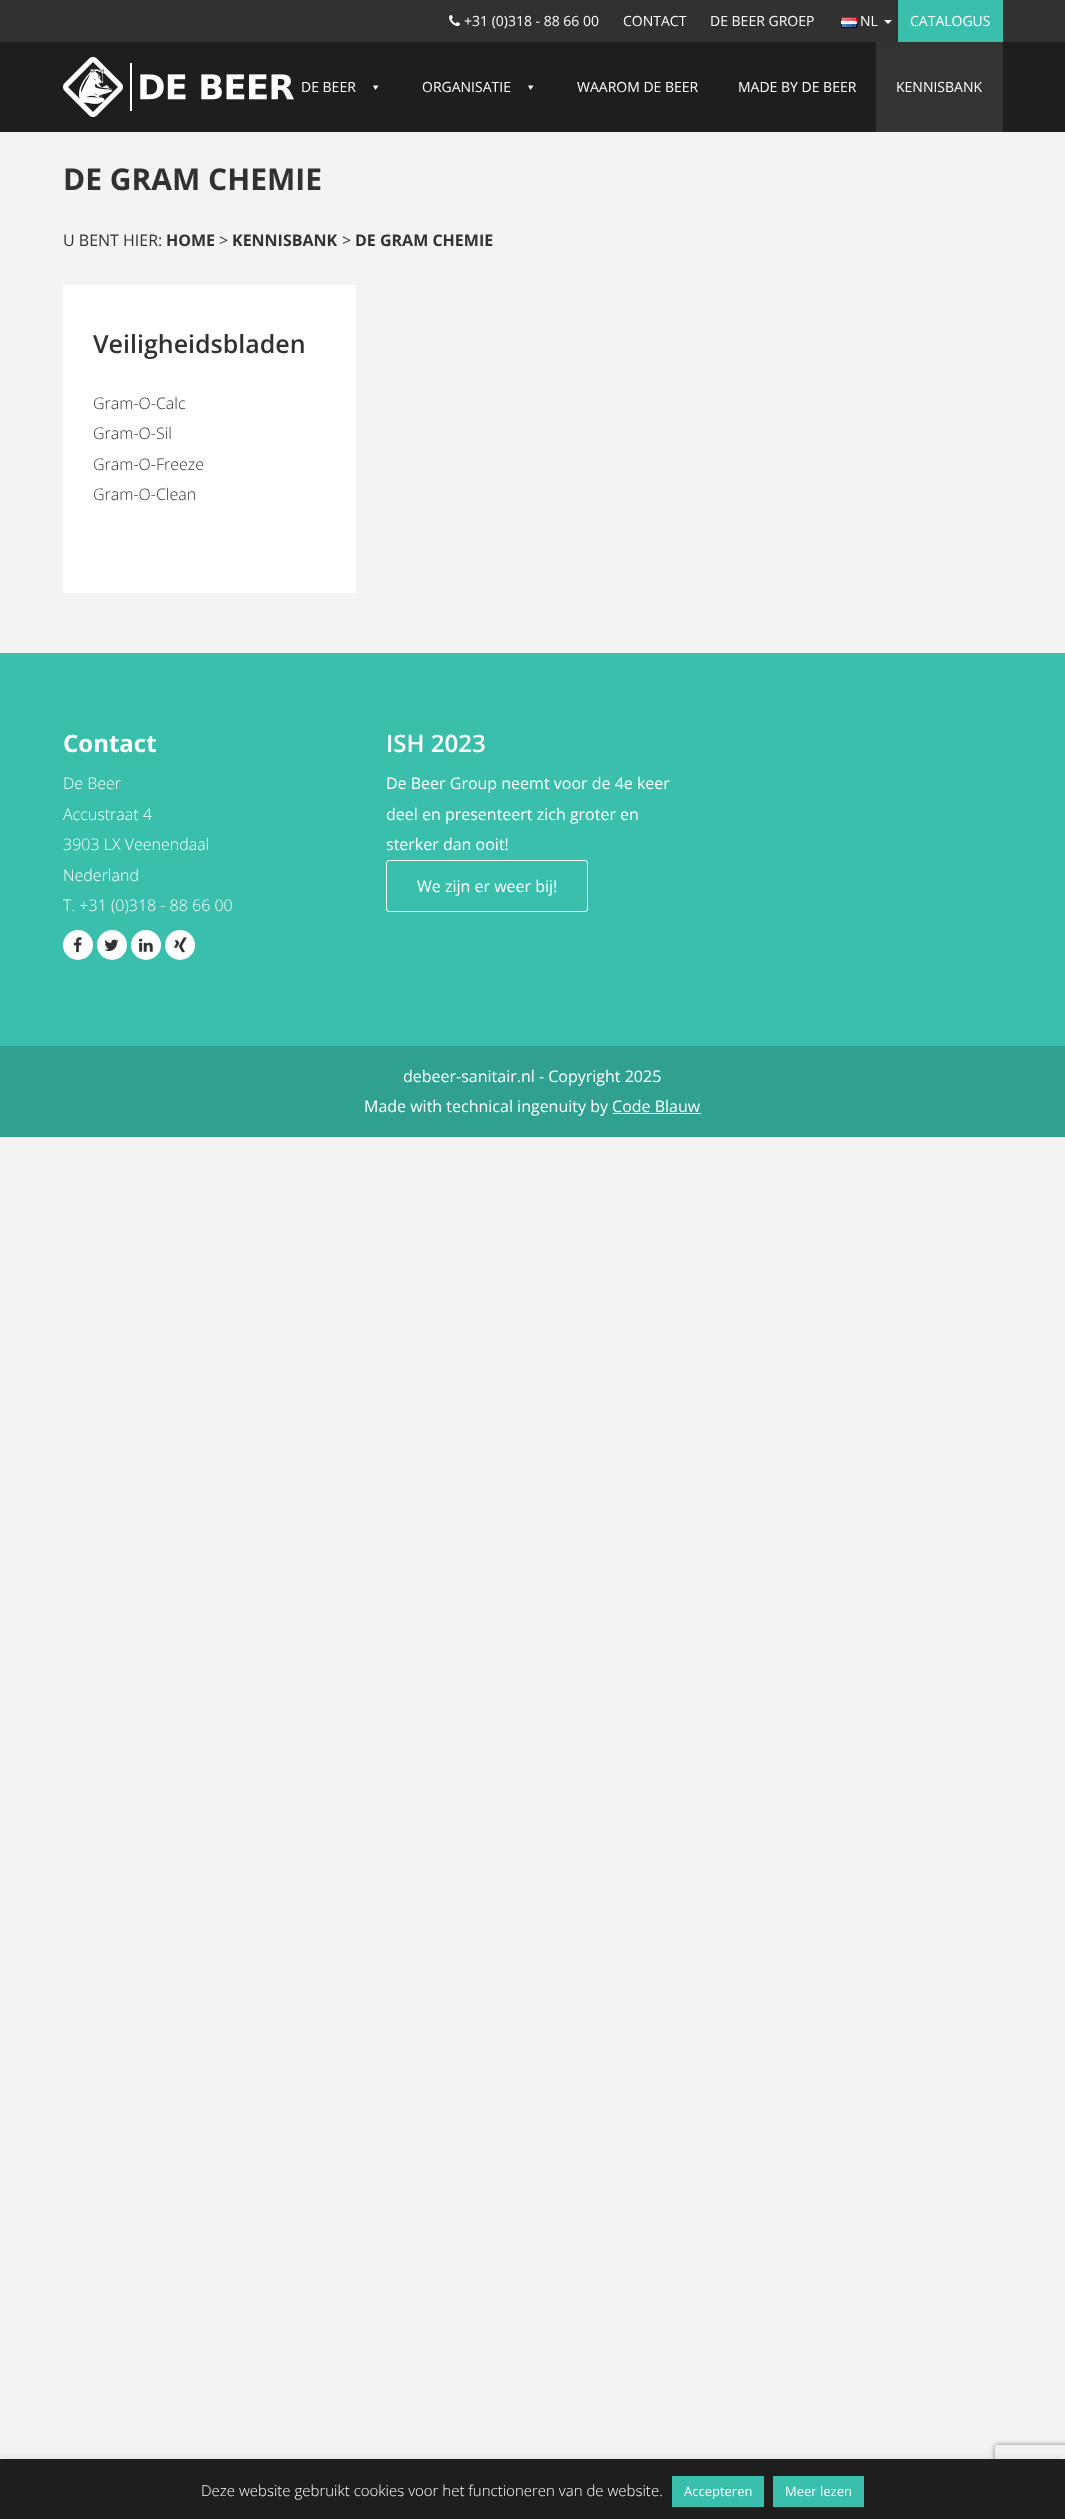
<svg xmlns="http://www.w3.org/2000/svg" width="1065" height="2519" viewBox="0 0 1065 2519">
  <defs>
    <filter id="blur1" x="-50%" y="-200%" width="200%" height="500%"><feGaussianBlur stdDeviation="5"/></filter>
    <clipPath id="clip1"><path d="M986 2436H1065V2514H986ZM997 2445H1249C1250 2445 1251 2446 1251 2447V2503C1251 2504 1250 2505 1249 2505H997C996 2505 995 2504 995 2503V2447C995 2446 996 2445 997 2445Z" clip-rule="evenodd"/></clipPath>
    <filter id="blur2" x="-50%" y="-200%" width="200%" height="500%"><feGaussianBlur stdDeviation="2.5"/></filter>
  </defs>
  <rect width="100%" height="100%" fill="#f3f3f3"/>
  <rect x="0" y="0" width="1065" height="42" fill="#313131"/>
  <image x="449" y="15" width="11" height="11" href="img1.png"/>
  <text x="464" y="26" font-family="Open Sans" font-size="14" fill="#ffffff">+31 (0)318 - 88 66 00</text>
  <text x="623" y="26" font-family="Open Sans" font-size="14" fill="#ffffff">CONTACT</text>
  <text x="710" y="26" font-family="Open Sans" font-size="14" fill="#ffffff">DE BEER GROEP</text>
  <image x="841" y="17" width="16" height="11" href="img2.png"/>
  <text x="860" y="26" font-family="Open Sans" font-size="14" fill="#ffffff">NL</text>
  <path d="M884 20H892L888 24Z" fill="#ffffff"/>
  <rect x="898" y="0" width="105" height="42" fill="#39bfac"/>
  <text x="910" y="26" font-family="Open Sans" font-size="14" fill="#ffffff">CATALOGUS</text>
  <rect x="0" y="42" width="1065" height="90" fill="#1e1e1e"/>
  <image x="63" y="57" width="231" height="60" href="img3.png"/>
  <text x="301" y="92" font-family="Open Sans" font-size="14" fill="#ffffff">DE BEER</text>
  <path d="M378.5 85.5L375.5 90L373 85.5Z" fill="#ffffff"/>
  <text x="422" y="92" font-family="Open Sans" font-size="14" fill="#ffffff">ORGANISATIE</text>
  <path d="M533.5 85.5L530.5 90L528 85.5Z" fill="#ffffff"/>
  <text x="577" y="92" font-family="Open Sans" font-size="14" fill="#ffffff">WAAROM DE BEER</text>
  <text x="738" y="92" font-family="Open Sans" font-size="14" fill="#ffffff">MADE BY DE BEER</text>
  <rect x="876" y="42" width="127" height="90" fill="#333333"/>
  <text x="896" y="92" font-family="Open Sans" font-size="14" fill="#ffffff">KENNISBANK</text>
  <text x="63" y="190" font-family="Open Sans" font-size="30" font-weight="bold" fill="#313131">DE GRAM CHEMIE</text>
  <text x="63" y="246" font-family="Open Sans" font-size="16" fill="#313131">U BENT HIER:</text>
  <text x="166" y="246" font-family="Open Sans" font-size="16" font-weight="bold" fill="#313131">HOME</text>
  <text x="219" y="246" font-family="Open Sans" font-size="16" fill="#313131">&gt;</text>
  <text x="232" y="246" font-family="Open Sans" font-size="16" font-weight="bold" fill="#313131">KENNISBANK</text>
  <text x="342" y="246" font-family="Open Sans" font-size="16" fill="#313131">&gt;</text>
  <text x="355" y="246" font-family="Open Sans" font-size="16" font-weight="bold" fill="#313131">DE GRAM CHEMIE</text>
  <rect x="63" y="285" width="293" height="308" fill="#ffffff"/>
  <text x="93" y="353" font-family="Open Sans" font-size="25" font-weight="600" fill="#313131">Veiligheidsbladen</text>
  <text x="93" y="409" font-family="Open Sans" font-size="16" font-weight="300" fill="#313131">Gram-O-Calc</text>
  <text x="93" y="439" font-family="Open Sans" font-size="16" font-weight="300" fill="#313131">Gram-O-Sil</text>
  <text x="93" y="470" font-family="Open Sans" font-size="16" font-weight="300" fill="#313131">Gram-O-Freeze</text>
  <text x="93" y="500" font-family="Open Sans" font-size="16" font-weight="300" fill="#313131">Gram-O-Clean</text>
  <rect x="0" y="653" width="1065" height="393" fill="#39bfac"/>
  <text x="63" y="752" font-family="Open Sans" font-size="24" font-weight="bold" fill="#ffffff">Contact</text>
  <text x="63" y="789" font-family="Open Sans" font-size="16" font-weight="300" fill="#ffffff">De Beer</text>
  <text x="63" y="820" font-family="Open Sans" font-size="16" font-weight="300" fill="#ffffff">Accustraat 4</text>
  <text x="63" y="850" font-family="Open Sans" font-size="16" font-weight="300" fill="#ffffff">3903 LX Veenendaal</text>
  <text x="63" y="881" font-family="Open Sans" font-size="16" font-weight="300" fill="#ffffff">Nederland</text>
  <text x="63" y="911" font-family="Open Sans" font-size="16" font-weight="300" fill="#ffffff">T. +31 (0)318 - 88 66 00</text>
  <circle cx="78" cy="945" r="15" fill="#ffffff"/>
  <image x="73" y="937" width="9" height="16" href="img4.png"/>
  <circle cx="112" cy="945" r="15" fill="#ffffff"/>
  <image x="104" y="939" width="15" height="12" href="img5.png"/>
  <circle cx="146" cy="945" r="15" fill="#ffffff"/>
  <image x="139" y="938" width="14" height="14" href="img6.png"/>
  <circle cx="180" cy="945" r="15" fill="#ffffff"/>
  <image x="174" y="937" width="13" height="16" href="img7.png"/>
  <text x="386" y="752" font-family="Open Sans" font-size="24" font-weight="600" fill="#ffffff">ISH 2023</text>
  <text x="386" y="789" font-family="Open Sans" font-size="16" fill="#ffffff">De Beer Group neemt voor de 4e keer</text>
  <text x="386" y="820" font-family="Open Sans" font-size="16" fill="#ffffff">deel en presenteert zich groter en</text>
  <text x="386" y="850" font-family="Open Sans" font-size="16" fill="#ffffff">sterker dan ooit!</text>
  <rect x="386.5" y="860.5" width="201" height="51" rx="2.5" fill="none" stroke="#ffffff"/>
  <text x="417" y="892" font-family="Open Sans" font-size="16" fill="#ffffff">We zijn er weer bij!</text>
  <rect x="0" y="1046" width="1065" height="91" fill="#30a090"/>
  <text x="403" y="1082" font-family="Open Sans" font-size="16" fill="#ffffff">debeer-sanitair.nl - Copyright 2025</text>
  <text x="364" y="1112" font-family="Open Sans" font-size="16" fill="#ffffff">Made with technical ingenuity by Code Blauw</text>
  <rect x="613" y="1113" width="88" height="1" fill="#ffffff"/>
  <rect x="0" y="2458" width="1065" height="60" fill="#acabab" fill-opacity="0.3" filter="url(#blur1)"/>
  <g clip-path="url(#clip1)">
    <rect x="995" y="2445" width="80" height="60" rx="2" fill="#808080" filter="url(#blur2)"/>
  </g>
  <rect x="0" y="2459" width="1065" height="60" fill="#1e1e1e"/>
  <text x="201" y="2496" font-family="Open Sans" font-size="15" font-weight="300" fill="#ffffff">Deze website gebruikt cookies voor het functioneren van de website.</text>
  <rect x="672" y="2476" width="92" height="31" fill="#39bfac"/>
  <text x="684" y="2496" font-family="Open Sans" font-size="13" fill="#ffffff">Accepteren</text>
  <rect x="773" y="2476" width="91" height="31" fill="#39bfac"/>
  <text x="785" y="2496" font-family="Open Sans" font-size="13" fill="#ffffff">Meer lezen</text>
</svg>
